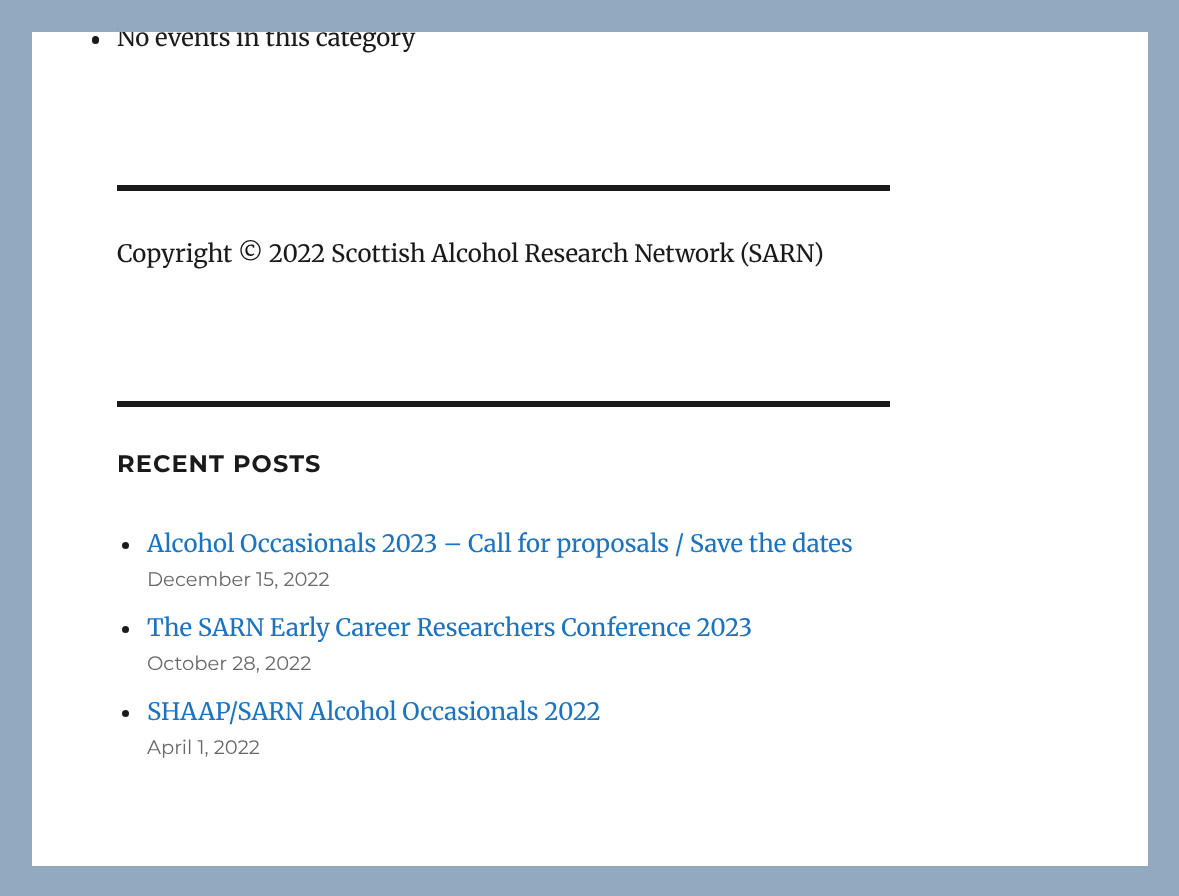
<svg xmlns="http://www.w3.org/2000/svg" width="1179" height="896" viewBox="0 0 1179 896">
  <rect width="100%" height="100%" fill="#93a9bf"/>
  <rect x="32" y="32" width="1116" height="834" fill="#ffffff"/>
  <rect x="92" y="36" width="7" height="8" rx="3.5" fill="#1a1a1a"/>
  <text x="117" y="46" font-family="Merriweather" font-size="24" fill="#1a1a1a">No events in this category</text>
  <rect x="117" y="185" width="773" height="6" fill="#1a1a1a"/>
  <text x="117" y="262" font-family="Merriweather" font-size="24" fill="#1a1a1a">Copyright © 2022 Scottish Alcohol Research Network (SARN)</text>
  <rect x="117" y="401" width="773" height="6" fill="#1a1a1a"/>
  <text x="117" y="472" font-family="Montserrat" font-size="24" font-weight="bold" letter-spacing="1.1" fill="#1a1a1a">RECENT POSTS</text>
  <circle cx="125.5" cy="545.5" r="3.5" fill="#1a1a1a"/>
  <text x="147" y="552" font-family="Merriweather" font-size="24" fill="#1e73be">Alcohol Occasionals 2023 – Call for proposals / Save the dates</text>
  <text x="147" y="586" font-family="Montserrat" font-size="19.5" fill="#686868">December 15, 2022</text>
  <circle cx="125.5" cy="629.5" r="3.5" fill="#1a1a1a"/>
  <text x="147" y="636" font-family="Merriweather" font-size="24" fill="#1e73be">The SARN Early Career Researchers Conference 2023</text>
  <text x="147" y="670" font-family="Montserrat" font-size="19.5" fill="#686868">October 28, 2022</text>
  <circle cx="125.5" cy="713.5" r="3.5" fill="#1a1a1a"/>
  <text x="147" y="720" font-family="Merriweather" font-size="24" fill="#1e73be">SHAAP/SARN Alcohol Occasionals 2022</text>
  <text x="147" y="754" font-family="Montserrat" font-size="19.5" fill="#686868">April 1, 2022</text>
  <rect x="118" y="26" width="228" height="6" fill="#93a9bf"/>
</svg>
